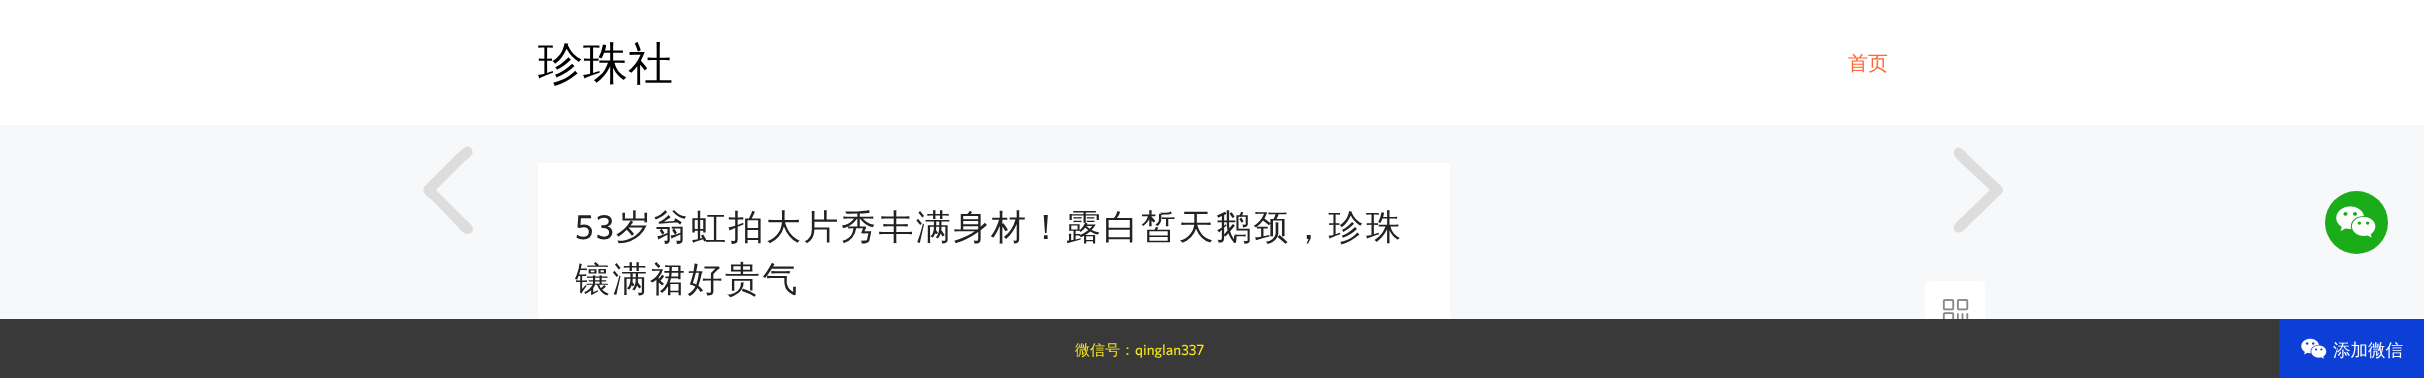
<svg xmlns="http://www.w3.org/2000/svg" width="2424" height="378" viewBox="0 0 2424 378">
  <rect width="100%" height="100%" fill="#f6f8f9"/>
  <rect x="0" y="0" width="2424" height="125" fill="#ffffff"/>
  <text x="538" y="79" font-family="WenQuanYi Zen Hei" font-size="45" font-weight="500" fill="#000000">珍珠社</text>
  <text x="1848" y="70" font-family="WenQuanYi Zen Hei" font-size="20" font-weight="500" fill="#ff6633">首页</text>
  <path d="M468 234C463 234 459 228 457 226L432 200C429 198 421 193 424 187L457 154C460 152 469 141 472 150C475 154 468 159 465 161L436 190L465 219C468 222 476 227 472 232C471 233 469 234 468 234Z" fill="#dddddd"/>
  <path d="M2002 193C2003 192 2003 190 2003 189L2002 187L1969 156C1966 153 1958 142 1954 151C1952 156 1959 160 1961 163L1990 190L1961 218C1958 221 1951 226 1955 231C1960 236 1966 228 1969 225Z" fill="#dddddd"/>
  <rect x="538" y="163" width="912" height="156" fill="#ffffff"/>
  <text x="575" y="239" font-family="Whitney" font-size="35" font-weight="500" letter-spacing="2.5" fill="#222222">53</text>
  <text x="616" y="239" font-family="WenQuanYi Zen Hei" font-size="35" font-weight="500" letter-spacing="2.5" fill="#222222">岁翁虹拍大片秀丰满身材！露白皙天鹅颈，珍珠</text>
  <text x="575" y="291" font-family="WenQuanYi Zen Hei" font-size="35" font-weight="500" letter-spacing="2.5" fill="#222222">镶满裙好贵气</text>
  <circle cx="2356.5" cy="222.5" r="31.5" fill="#1aad19"/>
  <image x="2336" y="206" width="40" height="32" href="img1.png"/>
  <rect x="1925" y="281" width="60" height="60" rx="5" fill="#ffffff"/>
  <image x="1942" y="299" width="27" height="20" href="img2.png"/>
  <rect x="0" y="319" width="2279" height="59" fill="#393939"/>
  <text x="1075" y="355" font-family="WenQuanYi Zen Hei" font-size="15" font-weight="500" fill="#f4e41c">微信号：</text>
  <text x="1135" y="355" font-family="Whitney" font-size="15" font-weight="500" fill="#f4e41c">qinglan337</text>
  <rect x="2279" y="319" width="145" height="59" fill="#0c3fd6"/>
  <image x="2301" y="338" width="26" height="21" href="img3.png"/>
  <text x="2333" y="356" font-family="WenQuanYi Zen Hei" font-size="17.5" font-weight="500" fill="#ffffff">添加微信</text>
</svg>
